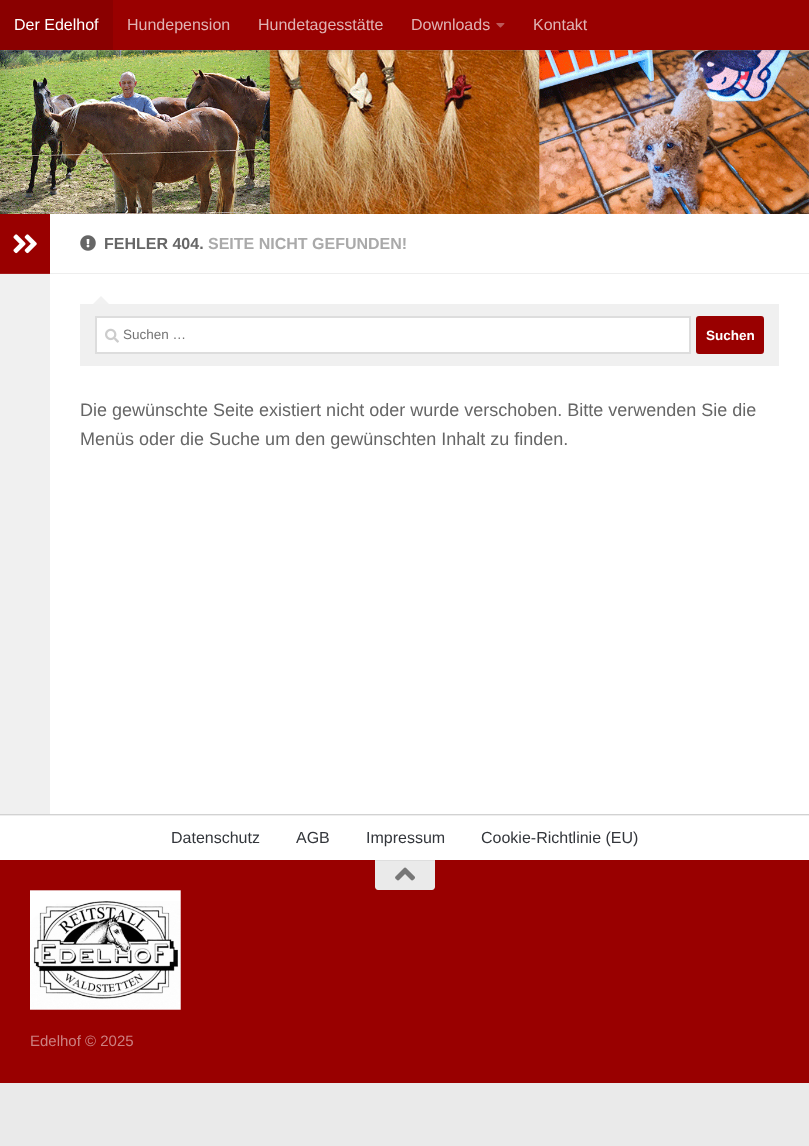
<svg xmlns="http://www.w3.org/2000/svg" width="809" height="1146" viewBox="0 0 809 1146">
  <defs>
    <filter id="blur1" x="-50%" y="-200%" width="200%" height="500%"><feGaussianBlur stdDeviation="0.5"/></filter>
    <clipPath id="clip1"><rect x="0" y="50" width="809" height="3"/></clipPath>
    <filter id="blur2" x="-50%" y="-200%" width="200%" height="500%"><feGaussianBlur stdDeviation="2.5"/></filter>
  </defs>
  <rect width="100%" height="100%" fill="#eaeaea"/>
  <rect x="113" y="0" width="696" height="50" fill="#990000"/>
  <rect x="0" y="215" width="809" height="600" fill="#000000" fill-opacity="0.1" filter="url(#blur1)"/>
  <image x="0" y="50" width="809" height="164" href="img2.png"/>
  <rect x="0" y="50" width="809" height="1" fill="#ffffff" fill-opacity="0.15"/>
  <g clip-path="url(#clip1)">
    <rect x="0" y="0" width="809" height="50" fill="#000000" fill-opacity="0.2" filter="url(#blur2)"/>
  </g>
  <rect x="0" y="0" width="113" height="50" fill="#8a0000"/>
  <text x="14" y="30" font-family="Liberation Sans" font-size="16" fill="#ffffff">Der Edelhof</text>
  <text x="127" y="30" font-family="Liberation Sans" font-size="16" fill="#e0b3b3">Hundepension</text>
  <text x="258" y="30" font-family="Liberation Sans" font-size="16" fill="#e0b3b3">Hundetagesstätte</text>
  <text x="411" y="30" font-family="Liberation Sans" font-size="16" fill="#e0b3b3">Downloads</text>
  <image x="496" y="23" width="9" height="5" href="img1.png"/>
  <text x="533" y="30" font-family="Liberation Sans" font-size="16" fill="#e0b3b3">Kontakt</text>
  <rect x="50" y="214" width="759" height="600" fill="#ffffff"/>
  <rect x="0" y="274" width="50" height="540" fill="#f0f0f0"/>
  <rect x="0" y="214" width="50" height="59" fill="#990000"/>
  <rect x="0" y="273" width="50" height="1" fill="#a31a1a"/>
  <image x="13" y="234" width="24" height="20" href="img3.png"/>
  <rect x="50" y="273" width="759" height="1" fill="#eeeeee"/>
  <image x="80" y="235" width="16" height="16" href="img4.png"/>
  <text x="104" y="249" font-family="Liberation Sans" font-size="16" font-weight="bold" fill="#666666">FEHLER 404.</text>
  <text x="208" y="249" font-family="Liberation Sans" font-size="16" font-weight="bold" fill="#aaaaaa">SEITE NICHT GEFUNDEN!</text>
  <rect x="80" y="304" width="699" height="62" fill="#f0f0f0"/>
  <path d="M109 304H93L101 296Z" fill="#f1f1f1"/>
  <rect x="96" y="317" width="594" height="36" fill="#ffffff" stroke="#dddddd" stroke-width="2"/>
  <image x="105" y="328" width="14" height="15" href="img5.png"/>
  <text x="123" y="339" font-family="Liberation Sans" font-size="13.5" fill="#757575">Suchen …</text>
  <rect x="696" y="316" width="68" height="38" rx="3" fill="#990000"/>
  <text x="706" y="340" font-family="Liberation Sans" font-size="13.5" font-weight="bold" fill="#ffffff">Suchen</text>
  <text x="80" y="416" font-family="Liberation Sans" font-size="18" fill="#666666">Die gewünschte Seite existiert nicht oder wurde verschoben. Bitte verwenden Sie die</text>
  <text x="80" y="445" font-family="Liberation Sans" font-size="18" fill="#666666">Menüs oder die Suche um den gewünschten Inhalt zu finden.</text>
  <rect x="0" y="816" width="809" height="44" fill="#ffffff"/>
  <rect x="0" y="815" width="809" height="1" fill="#eeeeee"/>
  <text x="171" y="843" font-family="Liberation Sans" font-size="16" fill="#33363b">Datenschutz</text>
  <text x="296" y="843" font-family="Liberation Sans" font-size="16" fill="#33363b">AGB</text>
  <text x="366" y="843" font-family="Liberation Sans" font-size="16" fill="#33363b">Impressum</text>
  <text x="481" y="843" font-family="Liberation Sans" font-size="16" fill="#33363b">Cookie-Richtlinie (EU)</text>
  <rect x="0" y="860" width="809" height="223" fill="#990000"/>
  <path d="M375 860H435V887C435 888.5 433.5 890 432 890H378C376.5 890 375 888.5 375 887Z" fill="#eaeaea"/>
  <rect x="375" y="860" width="60" height="1" fill="#dedede"/>
  <image x="395" y="867" width="20" height="14" href="img6.png"/>
  <image x="30" y="890" width="151" height="120" href="img7.png"/>
  <text x="30" y="1046" font-family="Liberation Sans" font-size="15" fill="#cc8080">Edelhof © 2025</text>
</svg>
